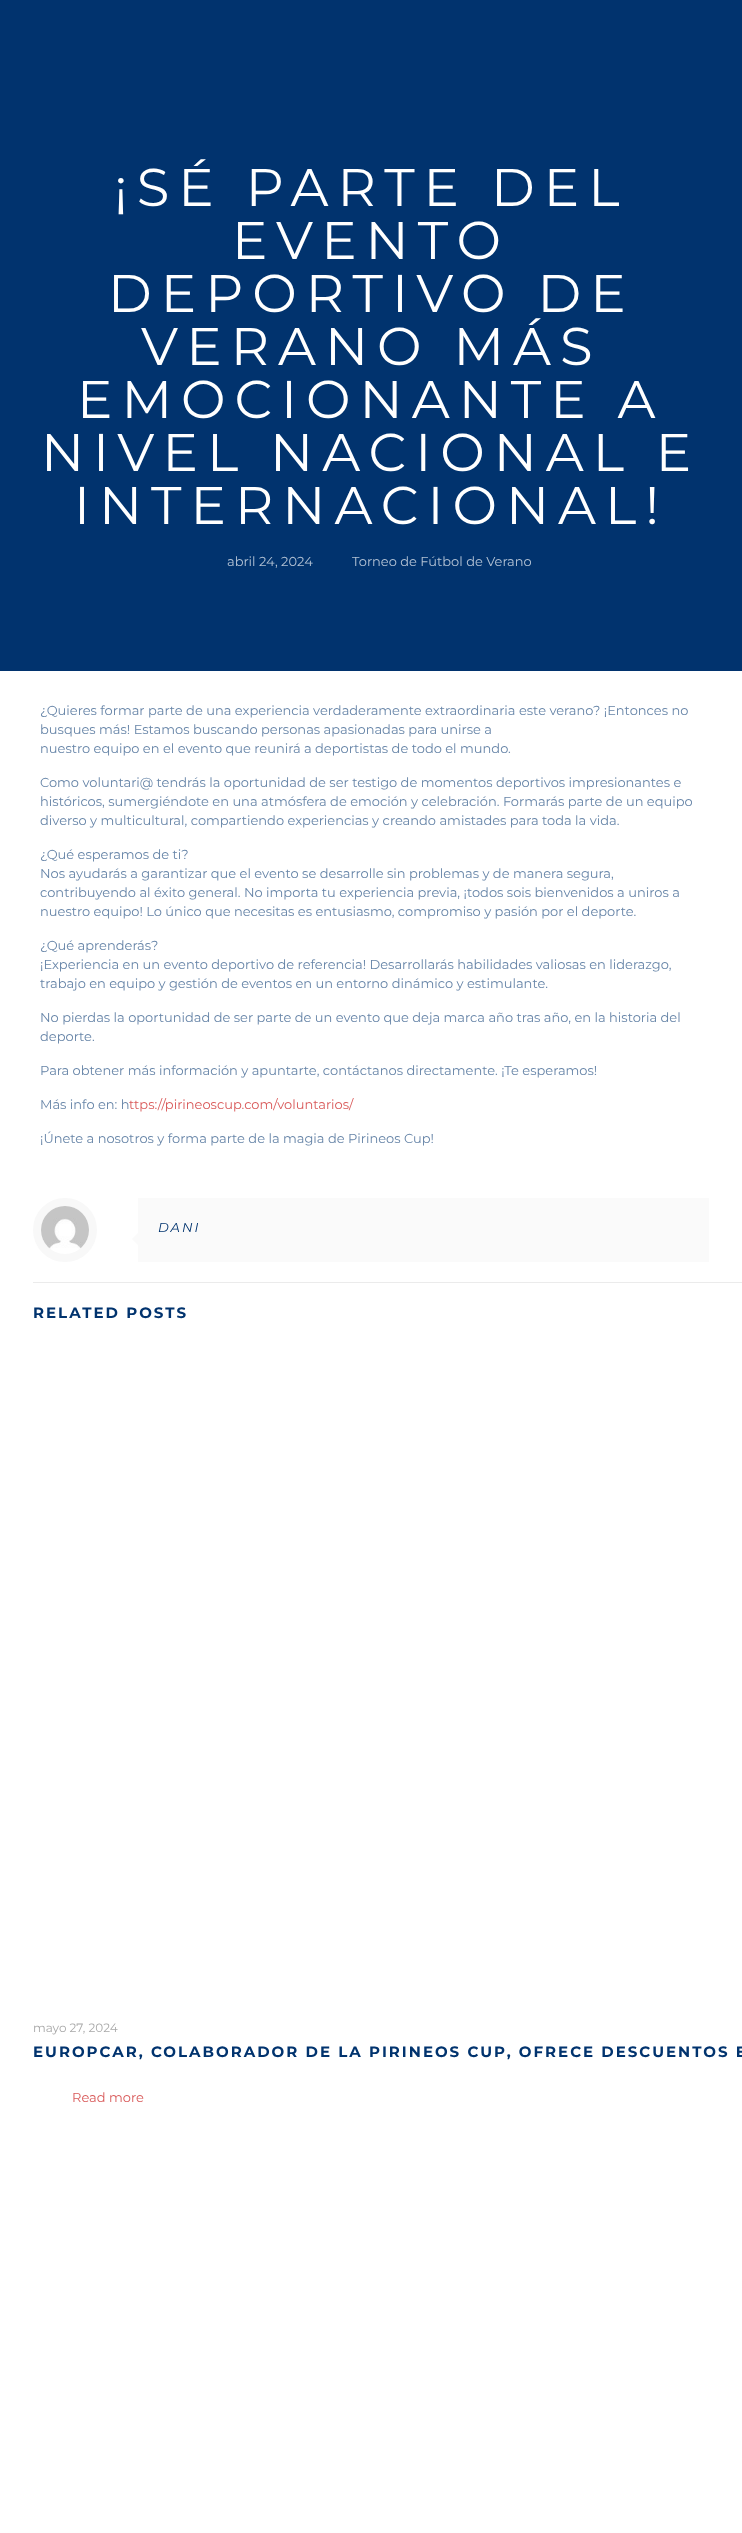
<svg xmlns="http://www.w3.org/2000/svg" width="742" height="2533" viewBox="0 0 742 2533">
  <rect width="100%" height="100%" fill="#ffffff"/>
  <rect x="0" y="0" width="742" height="671" fill="#01336e"/>
  <text x="114" y="206" font-family="Montserrat" font-size="53" letter-spacing="9" fill="#ffffff">¡SÉ PARTE DEL</text>
  <text x="232" y="259" font-family="Montserrat" font-size="53" letter-spacing="9" fill="#ffffff">EVENTO</text>
  <text x="108" y="312" font-family="Montserrat" font-size="53" letter-spacing="9" fill="#ffffff">DEPORTIVO DE</text>
  <text x="141" y="365" font-family="Montserrat" font-size="53" letter-spacing="9" fill="#ffffff">VERANO MÁS</text>
  <text x="77" y="418" font-family="Montserrat" font-size="53" letter-spacing="9" fill="#ffffff">EMOCIONANTE A</text>
  <text x="41" y="471" font-family="Montserrat" font-size="53" letter-spacing="9" fill="#ffffff">NIVEL NACIONAL E</text>
  <text x="74" y="524" font-family="Montserrat" font-size="53" letter-spacing="9" fill="#ffffff">INTERNACIONAL!</text>
  <text x="227" y="566" font-family="Montserrat" font-size="13" fill="#b3c2d4">abril 24, 2024</text>
  <text x="352" y="566" font-family="Montserrat" font-size="13" fill="#b3c2d4">Torneo de Fútbol de Verano</text>
  <text x="40" y="715" font-family="Montserrat" font-size="13" fill="#6785a8">¿Quieres formar parte de una experiencia verdaderamente extraordinaria este verano? ¡Entonces no</text>
  <text x="40" y="734" font-family="Montserrat" font-size="13" fill="#6785a8">busques más! Estamos buscando personas apasionadas para unirse a</text>
  <text x="40" y="753" font-family="Montserrat" font-size="13" fill="#6785a8">nuestro equipo en el evento que reunirá a deportistas de todo el mundo.</text>
  <text x="40" y="787" font-family="Montserrat" font-size="13" fill="#6785a8">Como voluntari@ tendrás la oportunidad de ser testigo de momentos deportivos impresionantes e</text>
  <text x="40" y="806" font-family="Montserrat" font-size="13" fill="#6785a8">históricos, sumergiéndote en una atmósfera de emoción y celebración. Formarás parte de un equipo</text>
  <text x="40" y="825" font-family="Montserrat" font-size="13" fill="#6785a8">diverso y multicultural, compartiendo experiencias y creando amistades para toda la vida.</text>
  <text x="40" y="859" font-family="Montserrat" font-size="13" fill="#6785a8">¿Qué esperamos de ti?</text>
  <text x="40" y="878" font-family="Montserrat" font-size="13" fill="#6785a8">Nos ayudarás a garantizar que el evento se desarrolle sin problemas y de manera segura,</text>
  <text x="40" y="897" font-family="Montserrat" font-size="13" fill="#6785a8">contribuyendo al éxito general. No importa tu experiencia previa, ¡todos sois bienvenidos a uniros a</text>
  <text x="40" y="916" font-family="Montserrat" font-size="13" fill="#6785a8">nuestro equipo! Lo único que necesitas es entusiasmo, compromiso y pasión por el deporte.</text>
  <text x="40" y="950" font-family="Montserrat" font-size="13" fill="#6785a8">¿Qué aprenderás?</text>
  <text x="40" y="969" font-family="Montserrat" font-size="13" fill="#6785a8">¡Experiencia en un evento deportivo de referencia! Desarrollarás habilidades valiosas en liderazgo,</text>
  <text x="40" y="988" font-family="Montserrat" font-size="13" fill="#6785a8">trabajo en equipo y gestión de eventos en un entorno dinámico y estimulante.</text>
  <text x="40" y="1022" font-family="Montserrat" font-size="13" fill="#6785a8">No pierdas la oportunidad de ser parte de un evento que deja marca año tras año, en la historia del</text>
  <text x="40" y="1041" font-family="Montserrat" font-size="13" fill="#6785a8">deporte.</text>
  <text x="40" y="1075" font-family="Montserrat" font-size="13" fill="#6785a8">Para obtener más información y apuntarte, contáctanos directamente. ¡Te esperamos!</text>
  <text x="40" y="1109" font-family="Montserrat" font-size="13" fill="#6785a8">Más info en: h</text>
  <text x="129" y="1109" font-family="Montserrat" font-size="13" fill="#d95a5a">ttps://pirineoscup.com/voluntarios/</text>
  <text x="40" y="1143" font-family="Montserrat" font-size="13" fill="#6785a8">¡Únete a nosotros y forma parte de la magia de Pirineos Cup!</text>
  <circle cx="65" cy="1230" r="28" fill="none" stroke="#f8f8f8" stroke-width="8"/>
  <image x="41" y="1206" width="48" height="43" href="img1.png"/>
  <rect x="138" y="1198" width="571" height="64" fill="#fafafa"/>
  <text x="158" y="1232" font-family="Montserrat" font-size="13" font-style="italic" letter-spacing="2" fill="#01336e">DANI</text>
  <path d="M138 1233V1245L132 1239Z" fill="#fafafa"/>
  <rect x="33" y="1282" width="709" height="1" fill="#ebebeb"/>
  <text x="33" y="1318" font-family="Montserrat" font-size="15" font-weight="bold" letter-spacing="2" fill="#01336e">RELATED POSTS</text>
  <text x="33" y="2032" font-family="Montserrat" font-size="12" fill="#a8a8a8">mayo 27, 2024</text>
  <text x="33" y="2057" font-family="Montserrat" font-size="15" font-weight="bold" letter-spacing="2" fill="#01336e">EUROPCAR, COLABORADOR DE LA PIRINEOS CUP, OFRECE DESCUENTOS E</text>
  <text x="72" y="2102" font-family="Montserrat" font-size="13" fill="#d95a5a">Read more</text>
</svg>
